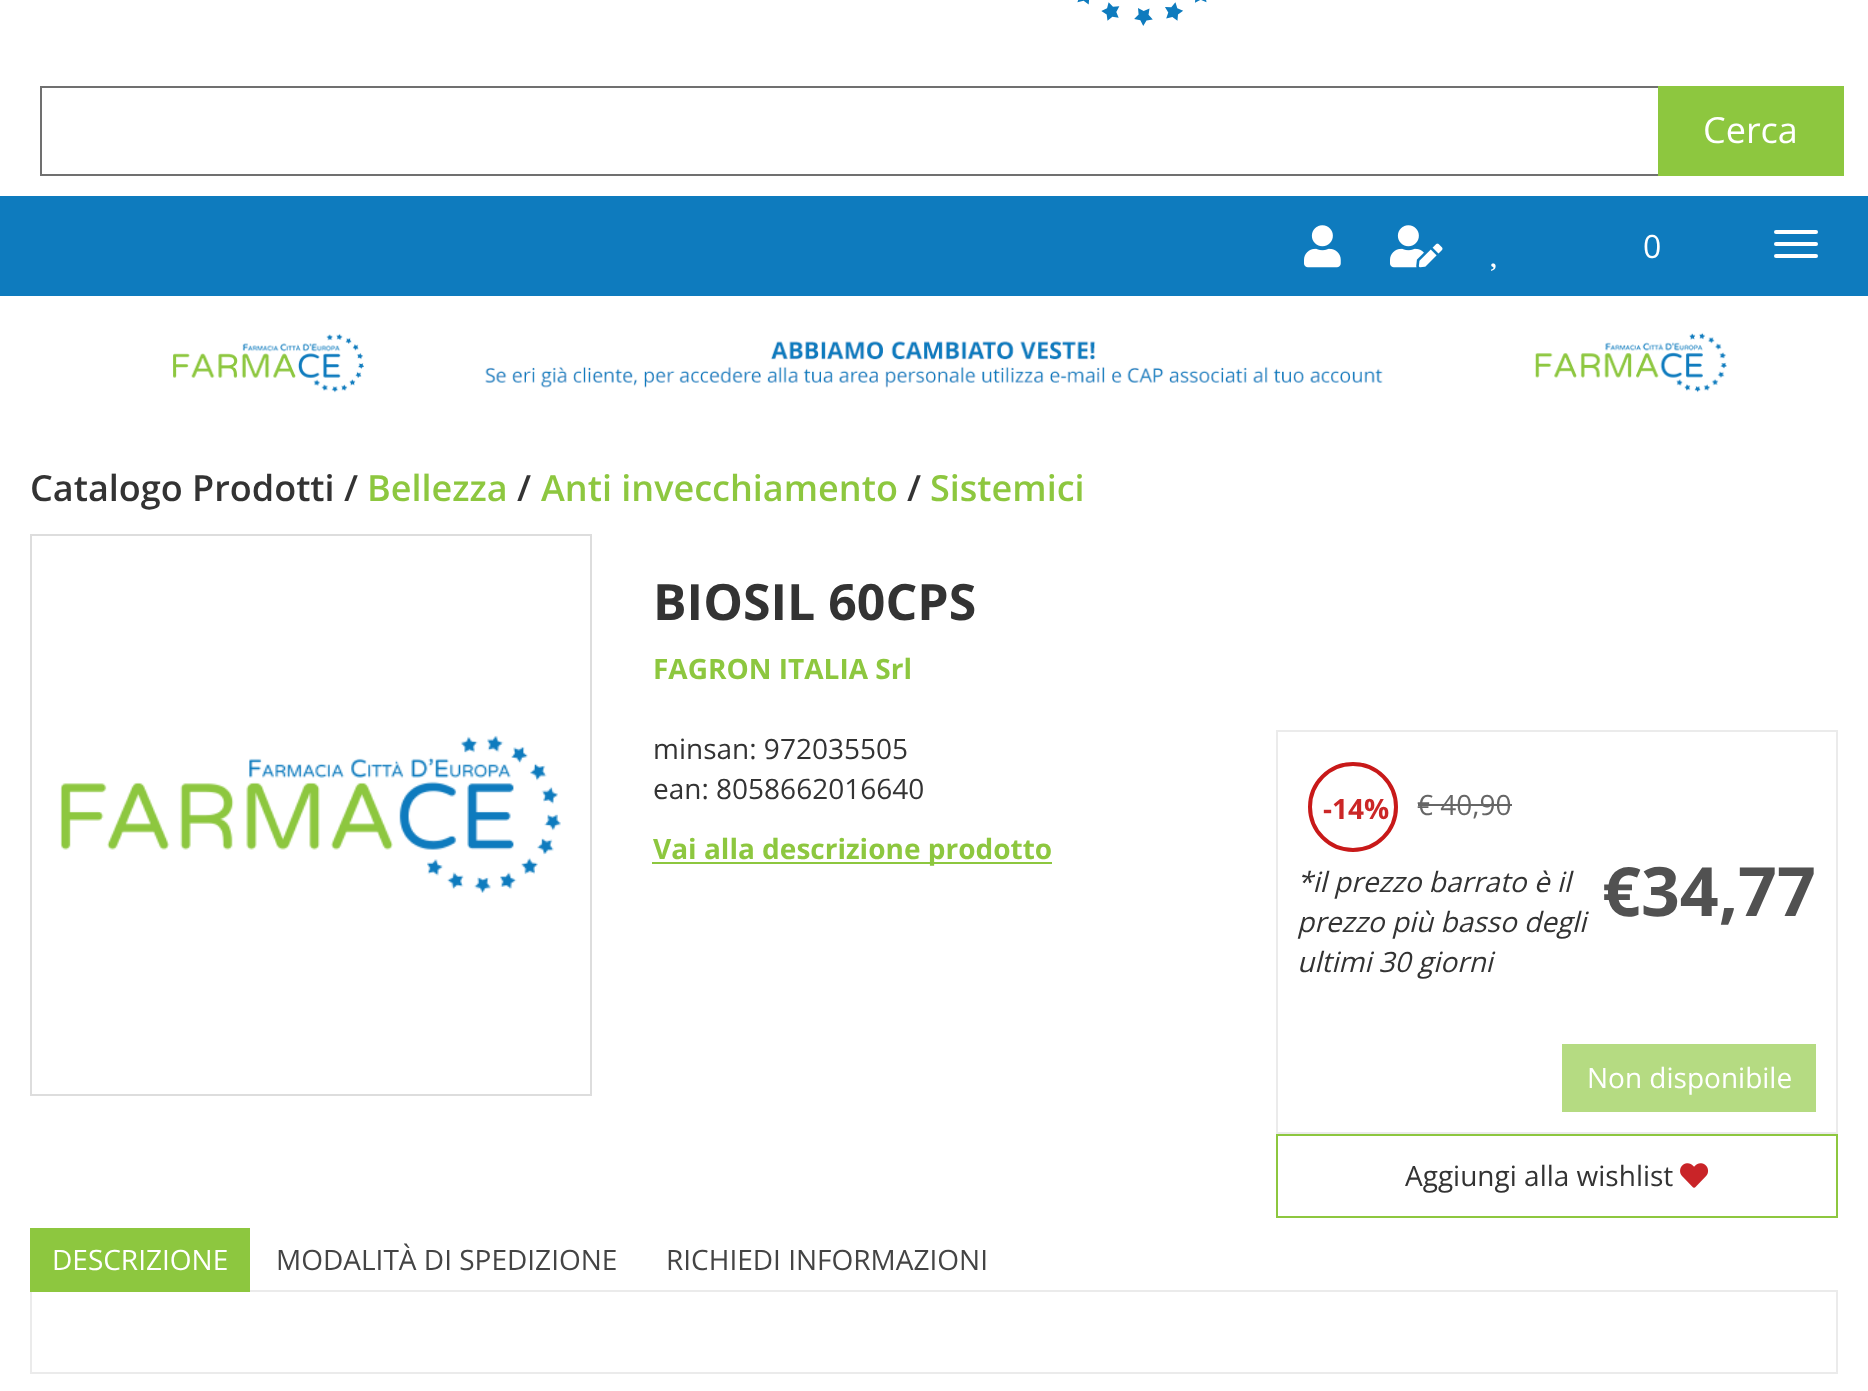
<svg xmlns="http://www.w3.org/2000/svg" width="1868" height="1391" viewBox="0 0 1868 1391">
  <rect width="100%" height="100%" fill="#ffffff"/>
  <image x="1077" y="0" width="130" height="26" href="img1.png"/>
  <rect x="40" y="86" width="1622" height="2" fill="#707070"/>
  <rect x="40" y="174" width="1622" height="2" fill="#707070"/>
  <rect x="40" y="86" width="2" height="90" fill="#707070"/>
  <rect x="1658" y="86" width="186" height="90" fill="#8dc73f"/>
  <text x="1703" y="143" font-family="Open Sans" font-size="36" fill="#ffffff">Cerca</text>
  <rect x="0" y="196" width="1868" height="100" fill="#0e7bbe"/>
  <image x="1304" y="225" width="37" height="43" href="img2.png"/>
  <image x="1390" y="225" width="53" height="43" href="img3.png"/>
  <text x="1643" y="258" font-family="Open Sans" font-size="32" fill="#ffffff">0</text>
  <rect x="1774" y="230" width="44" height="4" rx="2" fill="#ffffff"/>
  <rect x="1774" y="242" width="44" height="4" rx="2" fill="#ffffff"/>
  <rect x="1774" y="254" width="44" height="4" rx="2" fill="#ffffff"/>
  <image x="1491" y="263" width="5" height="8" href="img4.png"/>
  <image x="173" y="332" width="1554" height="61" href="img5.png"/>
  <text x="30" y="501" font-family="Open Sans" font-size="36" font-weight="600" fill="#333333">Catalogo Prodotti /</text>
  <text x="367" y="501" font-family="Open Sans" font-size="36" font-weight="600" fill="#8dc73f">Bellezza</text>
  <text x="517" y="501" font-family="Open Sans" font-size="36" font-weight="600" fill="#333333">/</text>
  <text x="541" y="501" font-family="Open Sans" font-size="36" font-weight="600" fill="#8dc73f">Anti invecchiamento</text>
  <text x="907" y="501" font-family="Open Sans" font-size="36" font-weight="600" fill="#333333">/</text>
  <text x="930" y="501" font-family="Open Sans" font-size="36" font-weight="600" fill="#8dc73f">Sistemici</text>
  <rect x="31" y="535" width="560" height="560" fill="none" stroke="#dddddd" stroke-width="2"/>
  <image x="60" y="735" width="501" height="158" href="img6.png"/>
  <text x="653" y="620" font-family="Open Sans" font-size="50" font-weight="bold" fill="#333333">BIOSIL 60CPS</text>
  <text x="653" y="679" font-family="Open Sans" font-size="28" font-weight="bold" fill="#8dc73f">FAGRON ITALIA Srl</text>
  <text x="653" y="759" font-family="Open Sans" font-size="28" fill="#333333">minsan: 972035505</text>
  <text x="653" y="799" font-family="Open Sans" font-size="28" fill="#333333">ean: 8058662016640</text>
  <rect x="652" y="862" width="400" height="2" fill="#8dc73f"/>
  <text x="653" y="859" font-family="Open Sans" font-size="28" font-weight="bold" fill="#8dc73f">Vai alla descrizione prodotto</text>
  <rect x="1277" y="731" width="560" height="402" fill="none" stroke="#ebebeb" stroke-width="2"/>
  <circle cx="1353" cy="807" r="43" fill="none" stroke="#c81919" stroke-width="4"/>
  <text x="1323" y="819" font-family="Open Sans" font-size="28" font-weight="bold" fill="#cb2727">-14%</text>
  <text x="1417" y="815" font-family="Open Sans" font-size="28" fill="#666666">€ 40,90</text>
  <rect x="1418" y="804" width="94" height="2" fill="#666666"/>
  <text x="1602" y="916" font-family="Open Sans" font-size="68" font-weight="bold" fill="#515151">€34,77</text>
  <text x="1297" y="892" font-family="Open Sans" font-size="28" font-style="italic" fill="#333333">*il prezzo barrato è il</text>
  <text x="1297" y="932" font-family="Open Sans" font-size="28" font-style="italic" fill="#333333">prezzo più basso degli</text>
  <text x="1297" y="972" font-family="Open Sans" font-size="28" font-style="italic" fill="#333333">ultimi 30 giorni</text>
  <rect x="1562" y="1044" width="254" height="68" fill="#b5db82"/>
  <text x="1587" y="1088" font-family="Open Sans" font-size="28" fill="#ffffff">Non disponibile</text>
  <rect x="1277" y="1135" width="560" height="82" fill="none" stroke="#8dc73f" stroke-width="2"/>
  <text x="1405" y="1186" font-family="Open Sans" font-size="28" fill="#333333">Aggiungi alla wishlist</text>
  <image x="1680" y="1163" width="29" height="25" href="img7.png"/>
  <rect x="31" y="1291" width="1806" height="82" fill="none" stroke="#ebebeb" stroke-width="2"/>
  <rect x="30" y="1228" width="220" height="64" fill="#8dc73f"/>
  <text x="52" y="1270" font-family="Open Sans" font-size="28" fill="#ffffff">DESCRIZIONE</text>
  <text x="276" y="1270" font-family="Open Sans" font-size="28" fill="#444444">MODALITÀ DI SPEDIZIONE</text>
  <text x="666" y="1270" font-family="Open Sans" font-size="28" fill="#444444">RICHIEDI INFORMAZIONI</text>
</svg>
